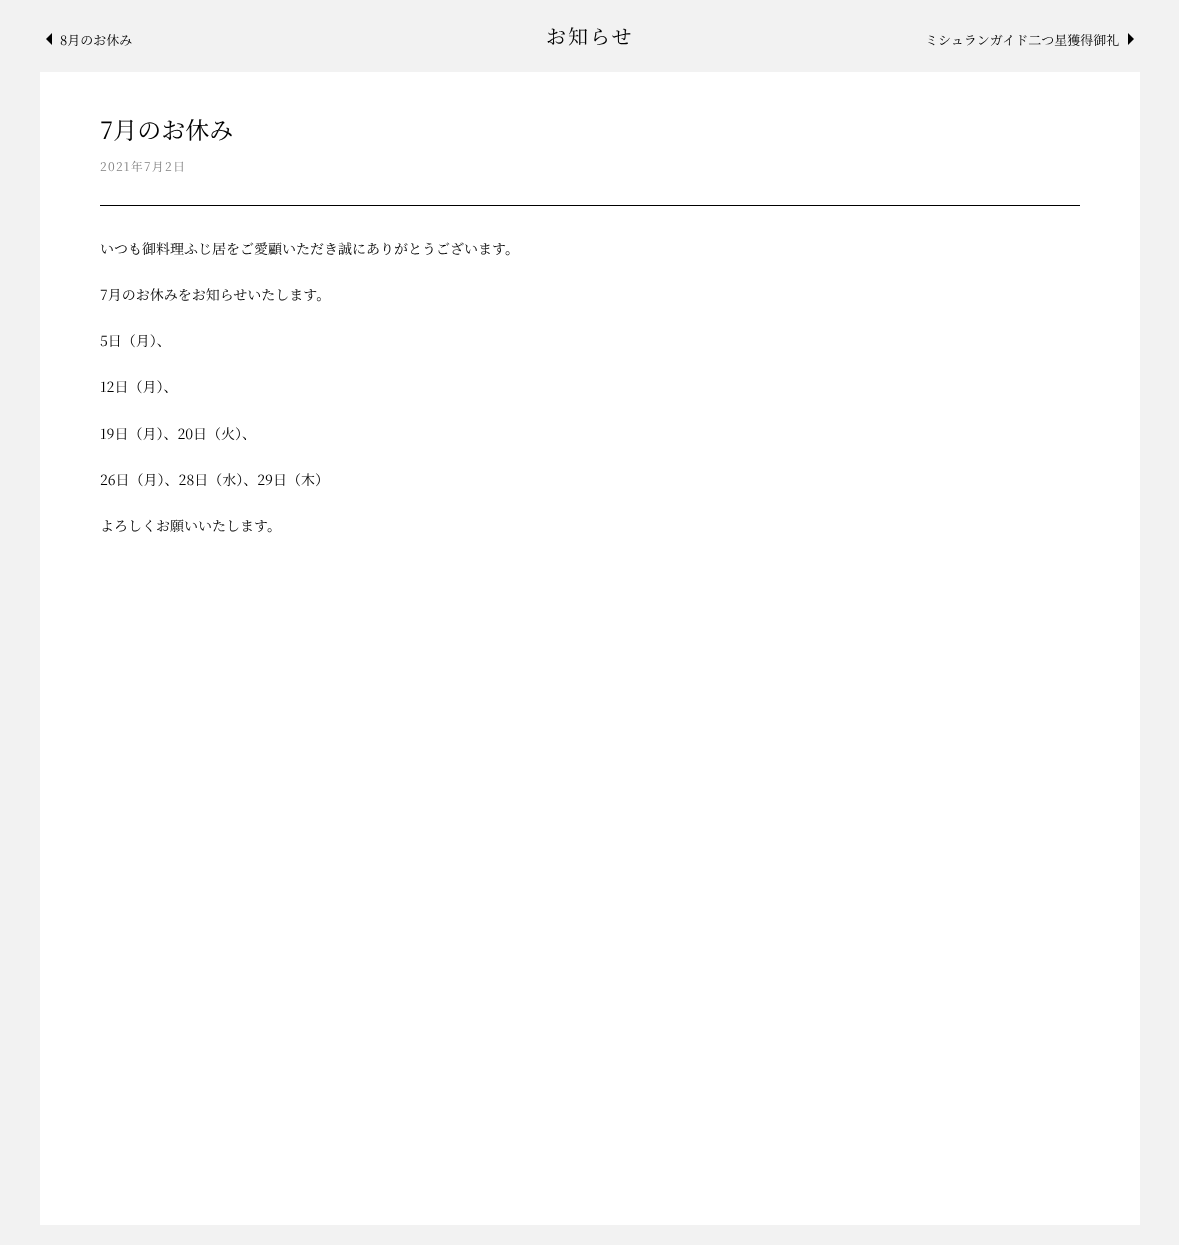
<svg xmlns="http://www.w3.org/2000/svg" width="1179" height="1245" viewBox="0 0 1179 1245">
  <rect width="100%" height="100%" fill="#f2f2f2"/>
  <text x="546" y="44" font-family="Noto Serif JP" font-size="20" font-weight="200" letter-spacing="2" fill="#000000">お知らせ</text>
  <path d="M52 33V45L46 39Z" fill="#000000"/>
  <text x="60" y="45" font-family="Noto Serif JP" font-size="13" font-weight="200" fill="#000000">8月のお休み</text>
  <text x="925" y="45" font-family="Noto Serif JP" font-size="13" font-weight="200" fill="#000000">ミシュランガイド二つ星獲得御礼</text>
  <path d="M1128 45V33L1134 39Z" fill="#000000"/>
  <rect x="40" y="72" width="1100" height="1153" fill="#ffffff"/>
  <text x="100" y="139" font-family="Noto Serif JP" font-size="24" font-weight="200" fill="#000000">7月のお休み</text>
  <rect x="100" y="205" width="980" height="1" fill="#000000"/>
  <text x="100" y="171" font-family="Noto Serif JP" font-size="12" font-weight="200" letter-spacing="1.25" fill="#808080">2021年7月2日</text>
  <text x="100" y="254" font-family="Noto Serif JP" font-size="14" font-weight="200" fill="#000000">いつも御料理ふじ居をご愛顧いただき誠にありがとうございます。</text>
  <text x="100" y="300" font-family="Noto Serif JP" font-size="14" font-weight="200" fill="#000000">7月のお休みをお知らせいたします。</text>
  <text x="100" y="346" font-family="Noto Serif JP" font-size="14" font-weight="200" fill="#000000">5日（月）、</text>
  <text x="100" y="392" font-family="Noto Serif JP" font-size="14" font-weight="200" fill="#000000">12日（月）、</text>
  <text x="100" y="439" font-family="Noto Serif JP" font-size="14" font-weight="200" fill="#000000">19日（月）、20日（火）、</text>
  <text x="100" y="485" font-family="Noto Serif JP" font-size="14" font-weight="200" fill="#000000">26日（月）、28日（水）、29日（木）</text>
  <text x="100" y="531" font-family="Noto Serif JP" font-size="14" font-weight="200" fill="#000000">よろしくお願いいたします。</text>
</svg>
